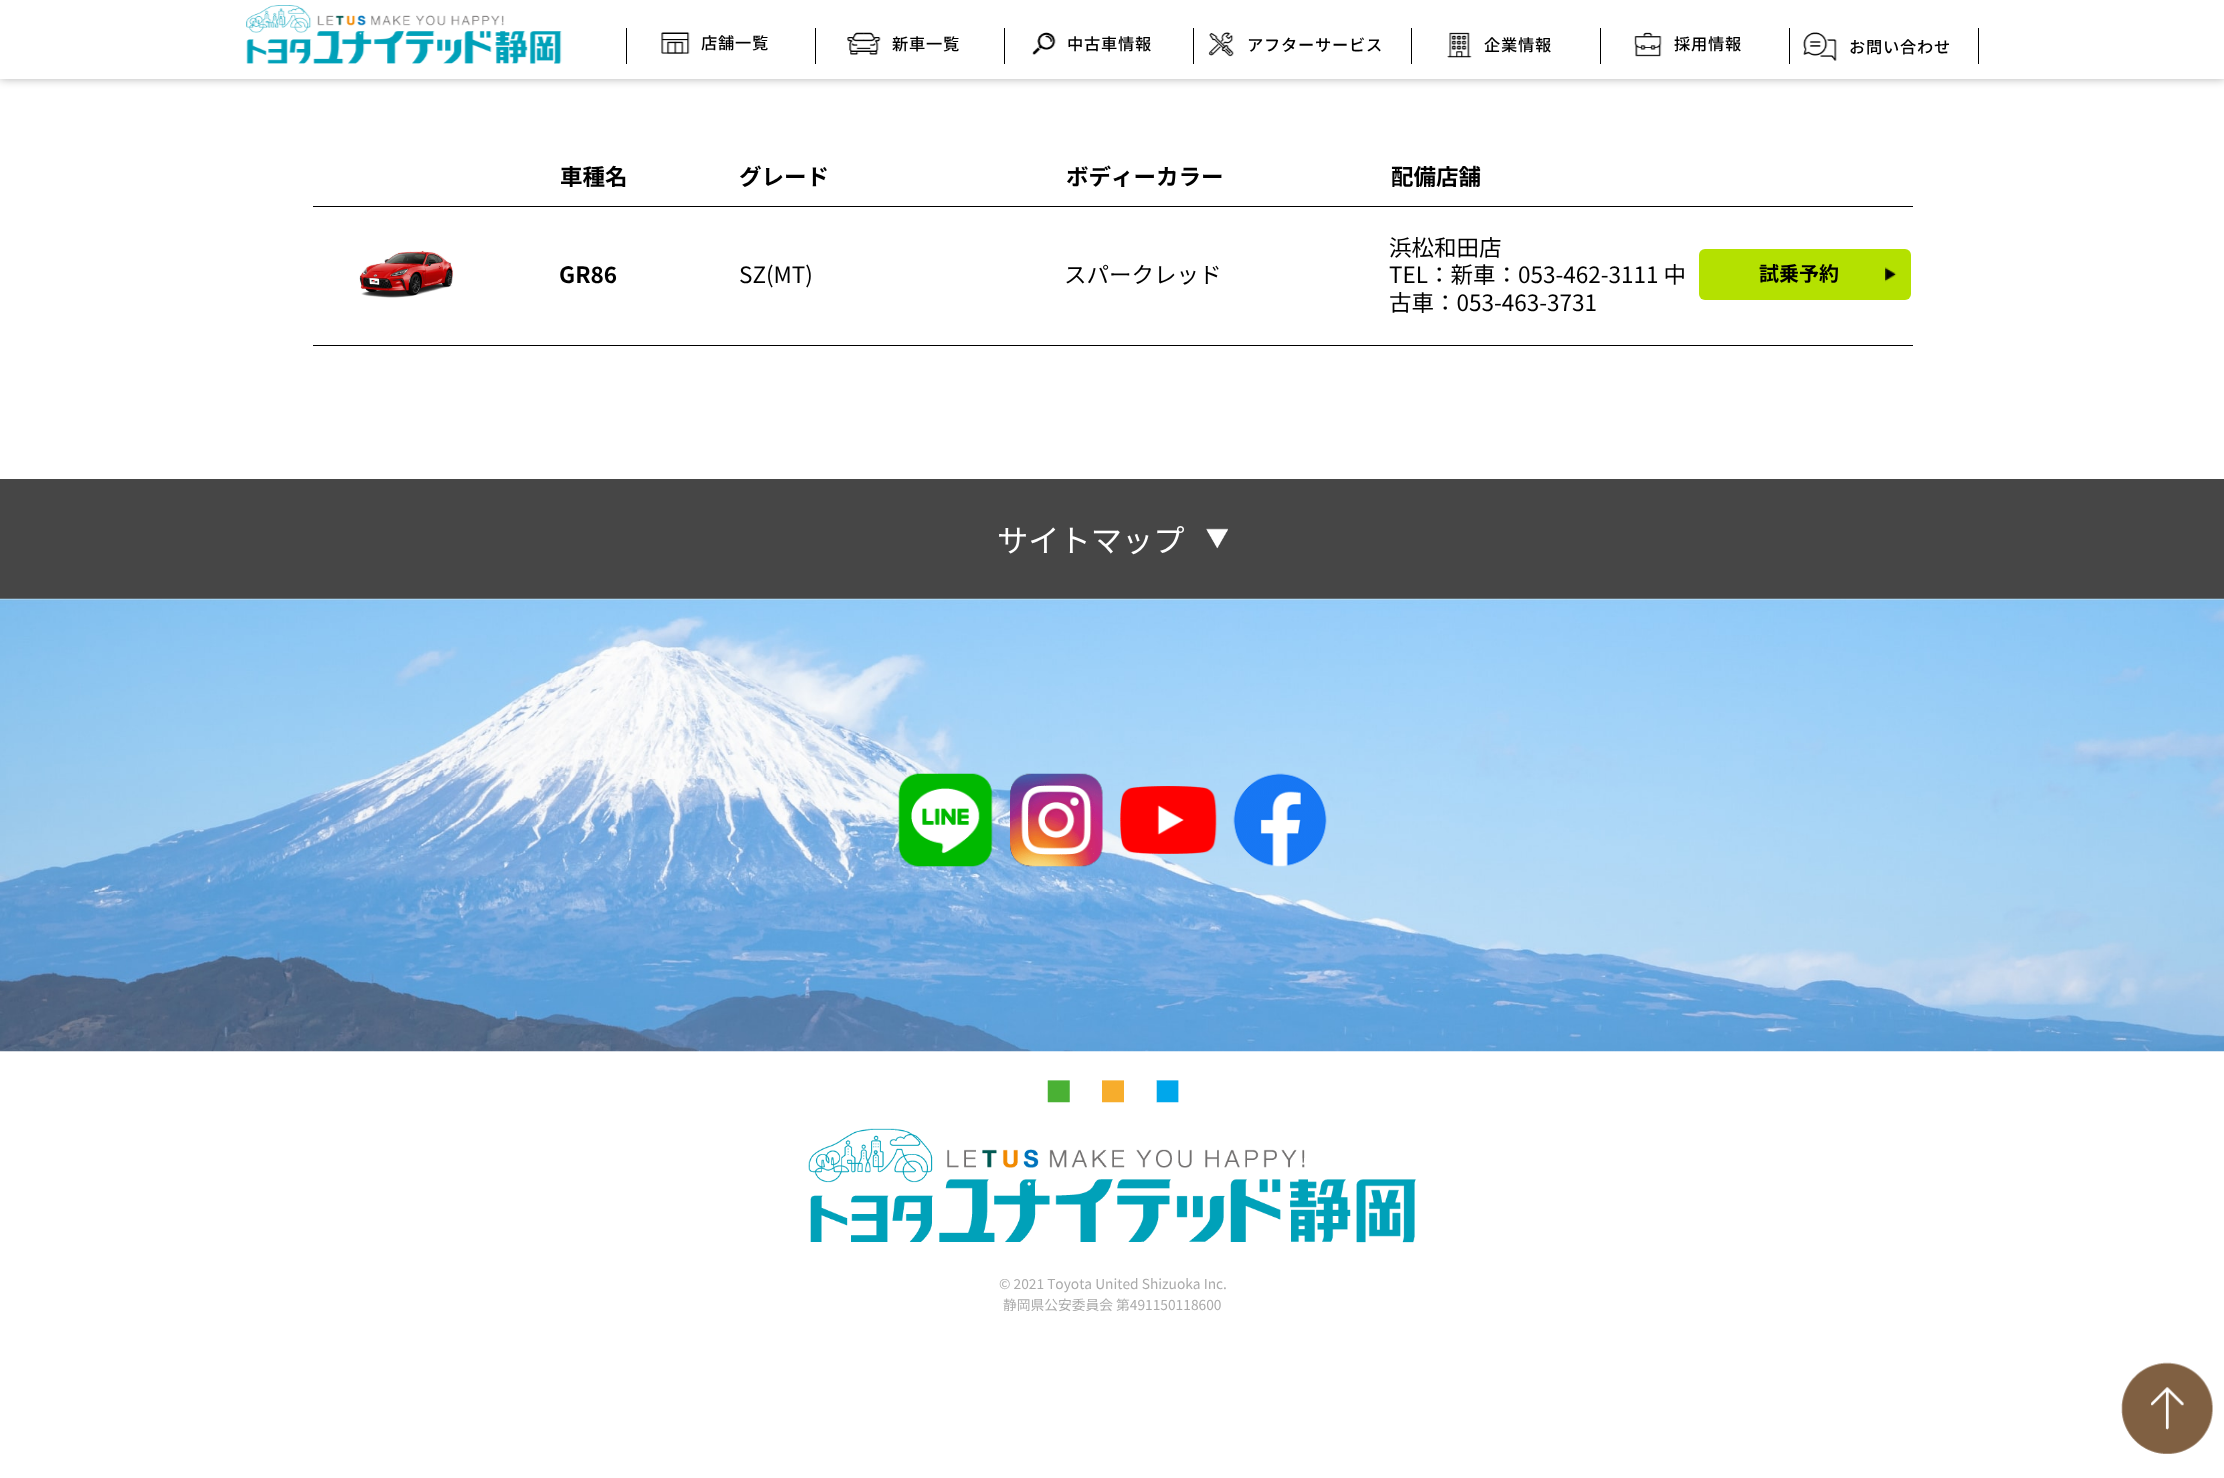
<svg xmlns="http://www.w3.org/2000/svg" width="2224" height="1478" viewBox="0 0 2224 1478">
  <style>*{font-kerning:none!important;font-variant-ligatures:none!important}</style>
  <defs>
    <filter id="blur1" x="-50%" y="-200%" width="200%" height="500%"><feGaussianBlur stdDeviation="5"/></filter>
  </defs>
  <rect width="100%" height="100%" fill="#ffffff"/>
  <rect x="0" y="0" width="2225" height="79" fill="#000000" fill-opacity="0.3" filter="url(#blur1)"/>
  <rect x="0" y="0" width="2224" height="79" fill="#ffffff"/>
  <image x="246" y="5" width="316" height="59" href="img1.png"/>
  <rect x="1978" y="28" width="1" height="36" fill="#000000"/>
  <rect x="626" y="28" width="1" height="36" fill="#000000"/>
  <image x="661" y="32" width="29" height="22" href="img2.png"/>
  <text x="701" y="49" font-family="Noto Sans JP" font-size="16.25" font-weight="500" letter-spacing="0.75" fill="#000000">店舗一覧</text>
  <rect x="815" y="28" width="1" height="36" fill="#000000"/>
  <image x="847" y="32" width="34" height="23" href="img3.png"/>
  <text x="892" y="50" font-family="Noto Sans JP" font-size="16.25" font-weight="500" letter-spacing="0.75" fill="#000000">新車一覧</text>
  <rect x="1004" y="28" width="1" height="36" fill="#000000"/>
  <image x="1032" y="32" width="24" height="23" href="img4.png"/>
  <text x="1067" y="50" font-family="Noto Sans JP" font-size="16.25" font-weight="500" letter-spacing="0.75" fill="#000000">中古車情報</text>
  <rect x="1193" y="28" width="1" height="36" fill="#000000"/>
  <image x="1208" y="32" width="26" height="25" href="img5.png"/>
  <text x="1247" y="51" font-family="Noto Sans JP" font-size="16.25" font-weight="500" letter-spacing="0.75" fill="#000000">アフターサービス</text>
  <rect x="1411" y="28" width="1" height="36" fill="#000000"/>
  <image x="1447" y="32" width="25" height="26" href="img6.png"/>
  <text x="1484" y="51" font-family="Noto Sans JP" font-size="16.25" font-weight="500" letter-spacing="0.75" fill="#000000">企業情報</text>
  <rect x="1600" y="28" width="1" height="36" fill="#000000"/>
  <image x="1634" y="32" width="28" height="25" href="img7.png"/>
  <text x="1674" y="50" font-family="Noto Sans JP" font-size="16.25" font-weight="500" letter-spacing="0.75" fill="#000000">採用情報</text>
  <rect x="1789" y="28" width="1" height="36" fill="#000000"/>
  <image x="1803" y="32" width="34" height="29" href="img8.png"/>
  <text x="1849" y="53" font-family="Noto Sans JP" font-size="16.25" font-weight="500" letter-spacing="0.75" fill="#000000">お問い合わせ</text>
  <rect x="313" y="206" width="1600" height="1" fill="#000000"/>
  <text x="560" y="185" font-family="Noto Sans JP" font-size="22.5" font-weight="bold" fill="#000000">車種名</text>
  <text x="739" y="185" font-family="Noto Sans JP" font-size="22.5" font-weight="bold" fill="#000000">グレード</text>
  <text x="1066" y="185" font-family="Noto Sans JP" font-size="22.5" font-weight="bold" fill="#000000">ボディーカラー</text>
  <text x="1391" y="185" font-family="Noto Sans JP" font-size="22.5" font-weight="bold" fill="#000000">配備店舗</text>
  <rect x="313" y="345" width="1600" height="1" fill="#000000"/>
  <image x="359" y="250" width="95" height="48" href="img9.png"/>
  <text x="559" y="283" font-family="Noto Sans JP" font-size="22.5" font-weight="bold" fill="#000000">GR86</text>
  <text x="739" y="283" font-family="Noto Sans JP" font-size="22.5" fill="#000000">SZ(MT)</text>
  <text x="1064" y="283" font-family="Noto Sans JP" font-size="22.5" fill="#000000">スパークレッド</text>
  <text x="1389" y="256" font-family="Noto Sans JP" font-size="22.5" fill="#000000">浜松和田店</text>
  <text x="1389" y="283" font-family="Noto Sans JP" font-size="22.5" fill="#000000">TEL：新車：053-462-3111 中</text>
  <text x="1389" y="311" font-family="Noto Sans JP" font-size="22.5" fill="#000000">古車：053-463-3731</text>
  <rect x="1699" y="249" width="212" height="51" rx="6" fill="#b4e100"/>
  <image x="1885" y="267" width="12" height="15" href="img10.png"/>
  <text x="1759" y="281" font-family="Noto Sans JP" font-size="20" font-weight="bold" fill="#000000">試乗予約</text>
  <rect x="0" y="479" width="2224" height="120" fill="#464646"/>
  <image x="1206" y="528" width="22" height="21" href="img11.png"/>
  <text x="997" y="552" font-family="Noto Sans JP" font-size="31.25" fill="#ffffff">サイトマップ</text>
  <image x="0" y="598" width="2224" height="454" href="img12.png"/>
  <image x="898" y="773" width="95" height="94" href="img13.png"/>
  <image x="1010" y="773" width="93" height="94" href="img14.png"/>
  <image x="1120" y="786" width="97" height="68" href="img15.png"/>
  <image x="1233" y="773" width="94" height="94" href="img16.png"/>
  <image x="1047" y="1080" width="132" height="23" href="img17.png"/>
  <image x="808" y="1128" width="609" height="115" href="img18.png"/>
  <text x="999" y="1289" font-family="Noto Sans JP" font-size="13.75" fill="#aaaaaa">© 2021 Toyota United Shizuoka Inc.</text>
  <text x="1003" y="1310" font-family="Noto Sans JP" font-size="13.75" fill="#aaaaaa">静岡県公安委員会 第491150118600</text>
  <image x="2121" y="1362" width="92" height="92" href="img19.png"/>
</svg>
